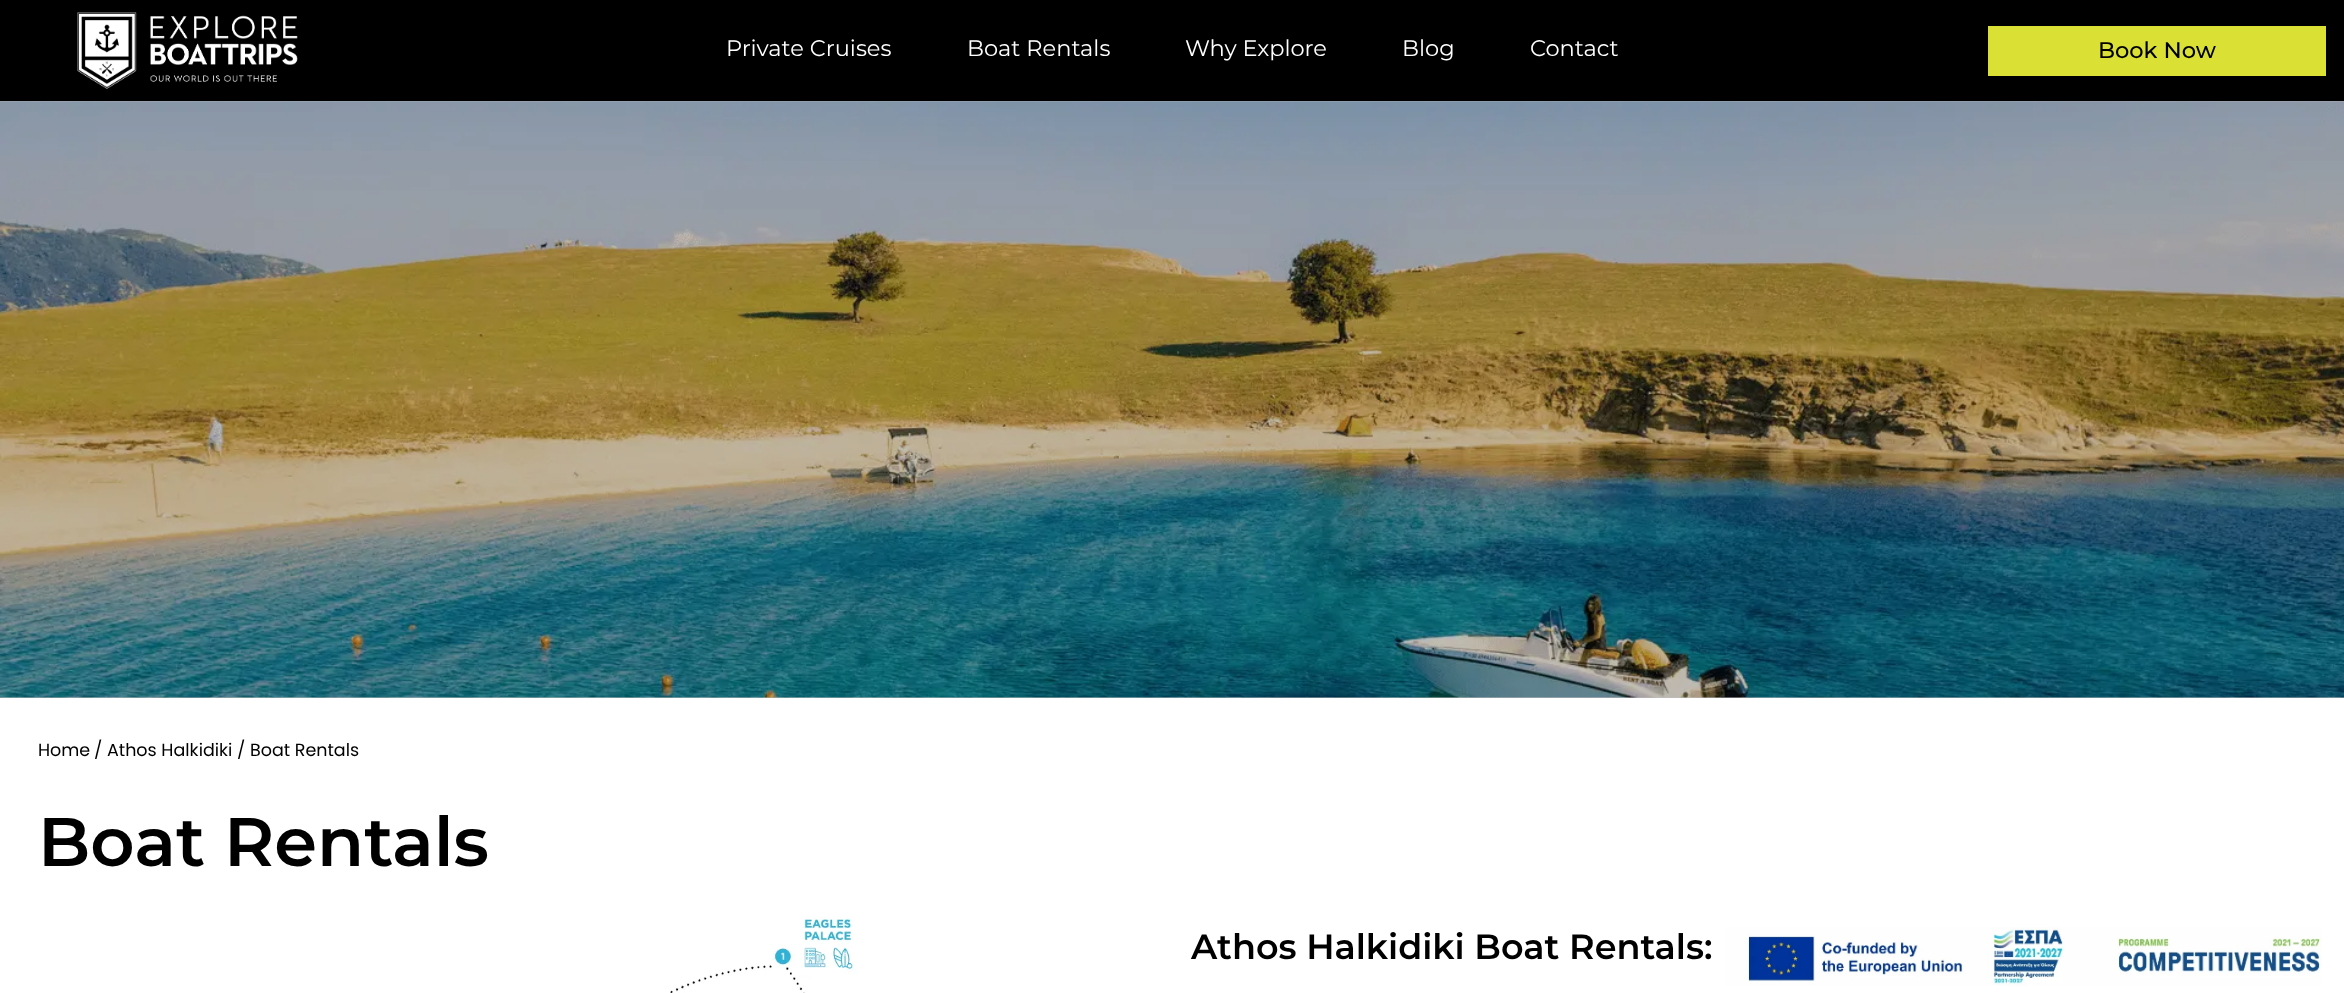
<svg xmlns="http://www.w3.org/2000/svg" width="2344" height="993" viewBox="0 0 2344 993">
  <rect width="100%" height="100%" fill="#ffffff"/>
  <rect x="0" y="101" width="2344" height="597" fill="#bfbfbf"/>
  <rect x="0" y="0" width="2344" height="101" fill="#000000"/>
  <image x="77" y="12" width="221" height="77" href="img1.png"/>
  <text x="726" y="56" font-family="Montserrat" font-size="22.5" fill="#ffffff">Private Cruises</text>
  <text x="967" y="56" font-family="Montserrat" font-size="22.5" fill="#ffffff">Boat Rentals</text>
  <text x="1185" y="56" font-family="Montserrat" font-size="22.5" fill="#ffffff">Why Explore</text>
  <text x="1402" y="56" font-family="Montserrat" font-size="22.5" fill="#ffffff">Blog</text>
  <text x="1530" y="56" font-family="Montserrat" font-size="22.5" fill="#ffffff">Contact</text>
  <rect x="1988" y="26" width="338" height="50" fill="#dbe034"/>
  <text x="2098" y="58" font-family="Montserrat" font-size="22.5" font-weight="500" fill="#000000">Book Now</text>
  <image x="0" y="101" width="2344" height="597" href="img2.png"/>
  <text x="38" y="756" font-family="Poppins" font-size="17.5" fill="#000000">Home</text>
  <text x="94" y="756" font-family="Poppins" font-size="17.5" fill="#000000">/ Athos Halkidiki</text>
  <text x="237" y="756" font-family="Poppins" font-size="17.5" fill="#000000">/ Boat Rentals</text>
  <text x="38" y="866" font-family="Montserrat" font-size="68.75" font-weight="600" fill="#000000">Boat Rentals</text>
  <image x="670" y="917" width="187" height="76" href="img3.png"/>
  <text x="1191" y="959" font-family="Montserrat" font-size="35" font-weight="600" fill="#000000">Athos Halkidiki Boat Rentals:</text>
  <image x="1725" y="927" width="597" height="59" href="img4.png"/>
</svg>
